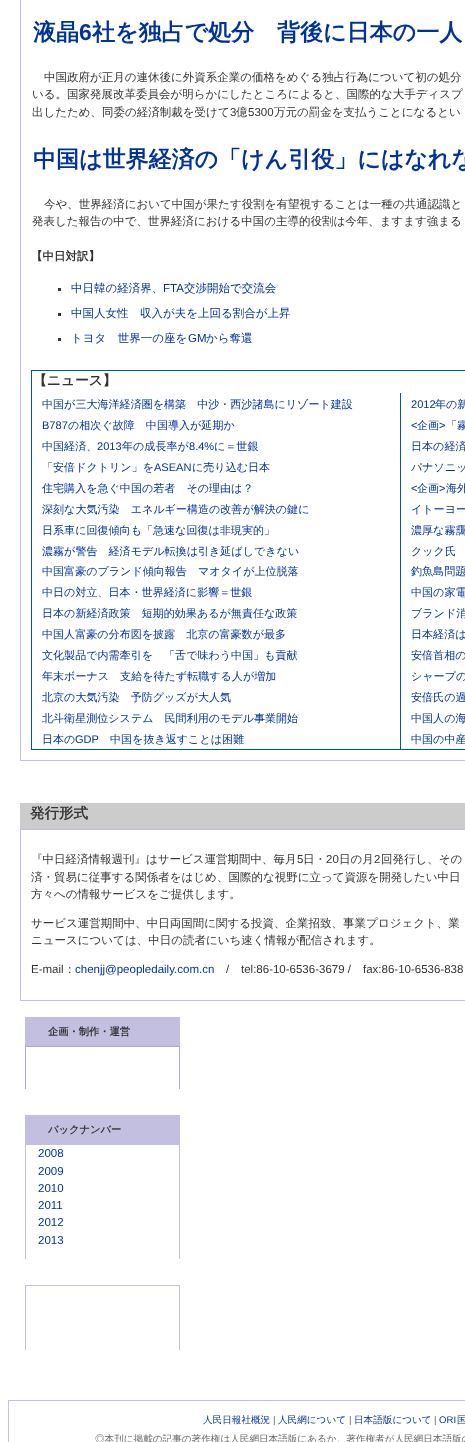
<svg xmlns="http://www.w3.org/2000/svg" width="465" height="1442" viewBox="0 0 465 1442">
  <rect width="100%" height="100%" fill="#ffffff"/>
  <rect x="20.5" y="-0.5" width="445" height="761" fill="none" stroke="#c2bfe0"/>
  <text x="33" y="40" font-family="WenQuanYi Zen Hei" font-size="23" font-weight="bold" fill="#003399">液晶</text>
  <text x="79" y="40" font-family="Liberation Sans" font-size="23" font-weight="bold" fill="#003399">6</text>
  <text x="92" y="40" font-family="WenQuanYi Zen Hei" font-size="23" font-weight="bold" fill="#003399">社を独占で処分　背後に日本の一人</text>
  <text x="44" y="81" font-family="WenQuanYi Zen Hei" font-size="11.5" font-weight="500" fill="#333333">中国政府が正月の連休後に外資系企業の価格をめぐる独占行為について初の処分</text>
  <text x="32" y="98" font-family="WenQuanYi Zen Hei" font-size="11.5" font-weight="500" fill="#333333">いる。国家発展改革委員会が明らかにしたところによると、国際的な大手ディスプ</text>
  <text x="32" y="116" font-family="WenQuanYi Zen Hei" font-size="11.5" font-weight="500" fill="#333333">出したため、同委の経済制裁を受けて</text>
  <text x="230" y="116" font-family="Liberation Sans" font-size="11.5" fill="#333333">3</text>
  <text x="236" y="116" font-family="WenQuanYi Zen Hei" font-size="11.5" font-weight="500" fill="#333333">億</text>
  <text x="248" y="116" font-family="Liberation Sans" font-size="11.5" fill="#333333">5300</text>
  <text x="274" y="116" font-family="WenQuanYi Zen Hei" font-size="11.5" font-weight="500" fill="#333333">万元の罰金を支払うことになるとい</text>
  <text x="33" y="167" font-family="WenQuanYi Zen Hei" font-size="23" font-weight="bold" fill="#003399">中国は世界経済の「けん引役」にはなれな</text>
  <text x="44" y="208" font-family="WenQuanYi Zen Hei" font-size="11.5" font-weight="500" fill="#333333">今や、世界経済において中国が果たす役割を有望視することは一種の共通認識と</text>
  <text x="32" y="225" font-family="WenQuanYi Zen Hei" font-size="11.5" font-weight="500" fill="#333333">発表した報告の中で、世界経済における中国の主導的役割は今年、ますます強まる</text>
  <text x="31" y="260" font-family="WenQuanYi Zen Hei" font-size="11.5" font-weight="bold" fill="#333333">【中日対訳】</text>
  <rect x="58" y="288" width="3" height="3" fill="#333333"/>
  <text x="71" y="292" font-family="WenQuanYi Zen Hei" font-size="11.5" font-weight="500" fill="#003399">中日韓の経済界、</text>
  <text x="163" y="292" font-family="Liberation Sans" font-size="11.5" fill="#003399">FTA</text>
  <text x="184" y="292" font-family="WenQuanYi Zen Hei" font-size="11.5" font-weight="500" fill="#003399">交渉開始で交流会</text>
  <rect x="58" y="313" width="3" height="3" fill="#333333"/>
  <text x="71" y="317" font-family="WenQuanYi Zen Hei" font-size="11.5" font-weight="500" fill="#003399">中国人女性　収入が夫を上回る割合が上昇</text>
  <rect x="58" y="338" width="3" height="3" fill="#333333"/>
  <text x="71" y="342" font-family="WenQuanYi Zen Hei" font-size="11.5" font-weight="500" fill="#003399">トヨタ　世界一の座を</text>
  <text x="188" y="342" font-family="Liberation Sans" font-size="11.5" fill="#003399">GM</text>
  <text x="206" y="342" font-family="WenQuanYi Zen Hei" font-size="11.5" font-weight="500" fill="#003399">から奪還</text>
  <rect x="31" y="370" width="434" height="1" fill="#0058a3"/>
  <rect x="31" y="749" width="434" height="1" fill="#0058a3"/>
  <rect x="31" y="370" width="1" height="380" fill="#0058a3"/>
  <text x="33" y="385" font-family="WenQuanYi Zen Hei" font-size="13.75" font-weight="bold" fill="#333333">【ニュース】</text>
  <text x="42" y="408" font-family="WenQuanYi Zen Hei" font-size="11.05" font-weight="500" fill="#003399">中国が三大海洋経済圏を構築　中沙・西沙諸島にリゾート建設</text>
  <text x="411" y="408" font-family="Liberation Sans" font-size="11.05" fill="#003399">2012</text>
  <text x="435" y="408" font-family="WenQuanYi Zen Hei" font-size="11.05" font-weight="500" fill="#003399">年の新</text>
  <text x="42" y="429" font-family="Liberation Sans" font-size="11.05" fill="#003399">B787</text>
  <text x="68" y="429" font-family="WenQuanYi Zen Hei" font-size="11.05" font-weight="500" fill="#003399">の相次ぐ故障　中国導入が延期か</text>
  <text x="411" y="429" font-family="Liberation Sans" font-size="11.05" fill="#003399">&lt;</text>
  <text x="417" y="429" font-family="WenQuanYi Zen Hei" font-size="11.05" font-weight="500" fill="#003399">企画</text>
  <text x="439" y="429" font-family="Liberation Sans" font-size="11.05" fill="#003399">&gt;</text>
  <text x="446" y="429" font-family="WenQuanYi Zen Hei" font-size="11.05" font-weight="500" fill="#003399">「霧</text>
  <text x="42" y="450" font-family="WenQuanYi Zen Hei" font-size="11.05" font-weight="500" fill="#003399">中国経済、</text>
  <text x="97" y="450" font-family="Liberation Sans" font-size="11.05" fill="#003399">2013</text>
  <text x="122" y="450" font-family="WenQuanYi Zen Hei" font-size="11.05" font-weight="500" fill="#003399">年の成長率が</text>
  <text x="189" y="450" font-family="Liberation Sans" font-size="11.05" fill="#003399">8.4%</text>
  <text x="214" y="450" font-family="WenQuanYi Zen Hei" font-size="11.05" font-weight="500" fill="#003399">に＝世銀</text>
  <text x="411" y="450" font-family="WenQuanYi Zen Hei" font-size="11.05" font-weight="500" fill="#003399">日本の経済</text>
  <text x="42" y="471" font-family="WenQuanYi Zen Hei" font-size="11.05" font-weight="500" fill="#003399">「安倍ドクトリン」を</text>
  <text x="154" y="471" font-family="Liberation Sans" font-size="11.05" fill="#003399">ASEAN</text>
  <text x="192" y="471" font-family="WenQuanYi Zen Hei" font-size="11.05" font-weight="500" fill="#003399">に売り込む日本</text>
  <text x="411" y="471" font-family="WenQuanYi Zen Hei" font-size="11.05" font-weight="500" fill="#003399">パナソニッ</text>
  <text x="42" y="492" font-family="WenQuanYi Zen Hei" font-size="11.05" font-weight="500" fill="#003399">住宅購入を急ぐ中国の若者　その理由は？</text>
  <text x="411" y="492" font-family="Liberation Sans" font-size="11.05" fill="#003399">&lt;</text>
  <text x="417" y="492" font-family="WenQuanYi Zen Hei" font-size="11.05" font-weight="500" fill="#003399">企画</text>
  <text x="439" y="492" font-family="Liberation Sans" font-size="11.05" fill="#003399">&gt;</text>
  <text x="446" y="492" font-family="WenQuanYi Zen Hei" font-size="11.05" font-weight="500" fill="#003399">海外</text>
  <text x="42" y="513" font-family="WenQuanYi Zen Hei" font-size="11.05" font-weight="500" fill="#003399">深刻な大気汚染　エネルギー構造の改善が解決の鍵に</text>
  <text x="411" y="513" font-family="WenQuanYi Zen Hei" font-size="11.05" font-weight="500" fill="#003399">イトーヨー</text>
  <text x="42" y="534" font-family="WenQuanYi Zen Hei" font-size="11.05" font-weight="500" fill="#003399">日系車に回復傾向も「急速な回復は非現実的」</text>
  <text x="411" y="534" font-family="WenQuanYi Zen Hei" font-size="11.05" font-weight="500" fill="#003399">濃厚な霧靄</text>
  <text x="42" y="555" font-family="WenQuanYi Zen Hei" font-size="11.05" font-weight="500" fill="#003399">濃霧が警告　経済モデル転換は引き延ばしできない</text>
  <text x="411" y="555" font-family="WenQuanYi Zen Hei" font-size="11.05" font-weight="500" fill="#003399">クック氏</text>
  <text x="42" y="575" font-family="WenQuanYi Zen Hei" font-size="11.05" font-weight="500" fill="#003399">中国富豪のブランド傾向報告　マオタイが上位脱落</text>
  <text x="411" y="575" font-family="WenQuanYi Zen Hei" font-size="11.05" font-weight="500" fill="#003399">釣魚島問題</text>
  <text x="42" y="596" font-family="WenQuanYi Zen Hei" font-size="11.05" font-weight="500" fill="#003399">中日の対立、日本・世界経済に影響＝世銀</text>
  <text x="411" y="596" font-family="WenQuanYi Zen Hei" font-size="11.05" font-weight="500" fill="#003399">中国の家電</text>
  <text x="42" y="617" font-family="WenQuanYi Zen Hei" font-size="11.05" font-weight="500" fill="#003399">日本の新経済政策　短期的効果あるが無責任な政策</text>
  <text x="411" y="617" font-family="WenQuanYi Zen Hei" font-size="11.05" font-weight="500" fill="#003399">ブランド消</text>
  <text x="42" y="638" font-family="WenQuanYi Zen Hei" font-size="11.05" font-weight="500" fill="#003399">中国人富豪の分布図を披露　北京の富豪数が最多</text>
  <text x="411" y="638" font-family="WenQuanYi Zen Hei" font-size="11.05" font-weight="500" fill="#003399">日本経済は</text>
  <text x="42" y="659" font-family="WenQuanYi Zen Hei" font-size="11.05" font-weight="500" fill="#003399">文化製品で内需牽引を　「舌で味わう中国」も貢献</text>
  <text x="411" y="659" font-family="WenQuanYi Zen Hei" font-size="11.05" font-weight="500" fill="#003399">安倍首相の</text>
  <text x="42" y="680" font-family="WenQuanYi Zen Hei" font-size="11.05" font-weight="500" fill="#003399">年末ボーナス　支給を待たず転職する人が増加</text>
  <text x="411" y="680" font-family="WenQuanYi Zen Hei" font-size="11.05" font-weight="500" fill="#003399">シャープの</text>
  <text x="42" y="701" font-family="WenQuanYi Zen Hei" font-size="11.05" font-weight="500" fill="#003399">北京の大気汚染　予防グッズが大人気</text>
  <text x="411" y="701" font-family="WenQuanYi Zen Hei" font-size="11.05" font-weight="500" fill="#003399">安倍氏の過</text>
  <text x="42" y="722" font-family="WenQuanYi Zen Hei" font-size="11.05" font-weight="500" fill="#003399">北斗衛星測位システム　民間利用のモデル事業開始</text>
  <text x="411" y="722" font-family="WenQuanYi Zen Hei" font-size="11.05" font-weight="500" fill="#003399">中国人の海</text>
  <text x="42" y="743" font-family="WenQuanYi Zen Hei" font-size="11.05" font-weight="500" fill="#003399">日本の</text>
  <text x="75" y="743" font-family="Liberation Sans" font-size="11.05" fill="#003399">GDP</text>
  <text x="110" y="743" font-family="WenQuanYi Zen Hei" font-size="11.05" font-weight="500" fill="#003399">中国を抜き返すことは困難</text>
  <rect x="400" y="393" width="1" height="357" fill="#0058a3"/>
  <text x="411" y="743" font-family="WenQuanYi Zen Hei" font-size="11.05" font-weight="500" fill="#003399">中国の中産</text>
  <rect x="20" y="803" width="445" height="26" fill="#cccccc"/>
  <text x="30" y="818" font-family="WenQuanYi Zen Hei" font-size="14.5" font-weight="bold" fill="#333333">発行形式</text>
  <rect x="20.5" y="829.5" width="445" height="171" fill="none" stroke="#c2bfe0"/>
  <text x="31" y="863" font-family="WenQuanYi Zen Hei" font-size="11.5" font-weight="500" fill="#333333">『中日経済情報週刊』はサービス運営期間中、毎月</text>
  <text x="297" y="863" font-family="Liberation Sans" font-size="11.5" fill="#333333">5</text>
  <text x="303" y="863" font-family="WenQuanYi Zen Hei" font-size="11.5" font-weight="500" fill="#333333">日・</text>
  <text x="326" y="863" font-family="Liberation Sans" font-size="11.5" fill="#333333">20</text>
  <text x="339" y="863" font-family="WenQuanYi Zen Hei" font-size="11.5" font-weight="500" fill="#333333">日の月</text>
  <text x="374" y="863" font-family="Liberation Sans" font-size="11.5" fill="#333333">2</text>
  <text x="381" y="863" font-family="WenQuanYi Zen Hei" font-size="11.5" font-weight="500" fill="#333333">回発行し、その</text>
  <text x="31" y="881" font-family="WenQuanYi Zen Hei" font-size="11.5" font-weight="500" fill="#333333">済・貿易に従事する関係者をはじめ、国際的な視野に立って資源を開発したい中日</text>
  <text x="31" y="898" font-family="WenQuanYi Zen Hei" font-size="11.5" font-weight="500" fill="#333333">方々への情報サービスをご提供します。</text>
  <text x="31" y="927" font-family="WenQuanYi Zen Hei" font-size="11.5" font-weight="500" fill="#333333">サービス運営期間中、中日両国間に関する投資、企業招致、事業プロジェクト、業</text>
  <text x="31" y="944" font-family="WenQuanYi Zen Hei" font-size="11.5" font-weight="500" fill="#333333">ニュースについては、中日の読者にいち速く情報が配信されます。</text>
  <text x="31" y="973" font-family="Liberation Sans" font-size="11.5" fill="#333333">E-mail</text>
  <text x="64" y="973" font-family="WenQuanYi Zen Hei" font-size="11.5" font-weight="500" fill="#333333">：</text>
  <text x="75" y="973" font-family="Liberation Sans" font-size="11.5" fill="#003399">chenjj@peopledaily.com.cn</text>
  <text x="226" y="973" font-family="Liberation Sans" font-size="11.5" fill="#333333">/</text>
  <text x="241" y="973" font-family="Liberation Sans" font-size="11.5" fill="#333333">tel:86-10-6536-3679 /</text>
  <text x="363" y="973" font-family="Liberation Sans" font-size="11.5" fill="#333333">fax:86-10-6536-838</text>
  <rect x="25" y="1017" width="155" height="29" fill="#c2bfe0"/>
  <text x="48" y="1035" font-family="WenQuanYi Zen Hei" font-size="10.25" font-weight="bold" fill="#333333">企画・制作・運営</text>
  <rect x="25" y="1046" width="155" height="1" fill="#b3a6d4"/>
  <rect x="179" y="1046" width="1" height="43" fill="#b3a6d4"/>
  <rect x="25" y="1046" width="1" height="43" fill="#b3a6d4"/>
  <rect x="25" y="1115" width="155" height="30" fill="#c2bfe0"/>
  <text x="48" y="1133" font-family="WenQuanYi Zen Hei" font-size="10.25" font-weight="bold" fill="#333333">バックナンバー</text>
  <rect x="179" y="1144" width="1" height="115" fill="#c2bfe0"/>
  <rect x="25" y="1144" width="1" height="115" fill="#c2bfe0"/>
  <text x="38" y="1157" font-family="Liberation Sans" font-size="11.5" fill="#003399">2008</text>
  <text x="38" y="1175" font-family="Liberation Sans" font-size="11.5" fill="#003399">2009</text>
  <text x="38" y="1192" font-family="Liberation Sans" font-size="11.5" fill="#003399">2010</text>
  <text x="38" y="1209" font-family="Liberation Sans" font-size="11.5" fill="#003399">2011</text>
  <text x="38" y="1226" font-family="Liberation Sans" font-size="11.5" fill="#003399">2012</text>
  <text x="38" y="1244" font-family="Liberation Sans" font-size="11.5" fill="#003399">2013</text>
  <rect x="25" y="1285" width="155" height="1" fill="#c2bfe0"/>
  <rect x="179" y="1285" width="1" height="65" fill="#c2bfe0"/>
  <rect x="25" y="1285" width="1" height="65" fill="#c2bfe0"/>
  <rect x="8.5" y="1400.5" width="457" height="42" fill="none" stroke="#c2bfe0"/>
  <text x="203" y="1423" font-family="WenQuanYi Zen Hei" font-size="9.6" font-weight="500" fill="#003399">人民日報社概況</text>
  <text x="273" y="1423" font-family="Liberation Sans" font-size="9.6" fill="#666666">|</text>
  <text x="278" y="1423" font-family="WenQuanYi Zen Hei" font-size="9.6" font-weight="500" fill="#003399">人民網について</text>
  <text x="349" y="1423" font-family="Liberation Sans" font-size="9.6" fill="#666666">|</text>
  <text x="354" y="1423" font-family="WenQuanYi Zen Hei" font-size="9.6" font-weight="500" fill="#003399">日本語版について</text>
  <text x="434" y="1423" font-family="Liberation Sans" font-size="9.6" fill="#666666">|</text>
  <text x="439" y="1423" font-family="Liberation Sans" font-size="9.6" fill="#003399">ORI</text>
  <text x="457" y="1423" font-family="WenQuanYi Zen Hei" font-size="9.6" font-weight="500" fill="#003399">国</text>
  <text x="95" y="1442" font-family="WenQuanYi Zen Hei" font-size="9.6" font-weight="500" fill="#666666">◎本刊に掲載の記事の著作権は人民網日本語版にあるか、著作権者が人民網日本語版の</text>
</svg>
